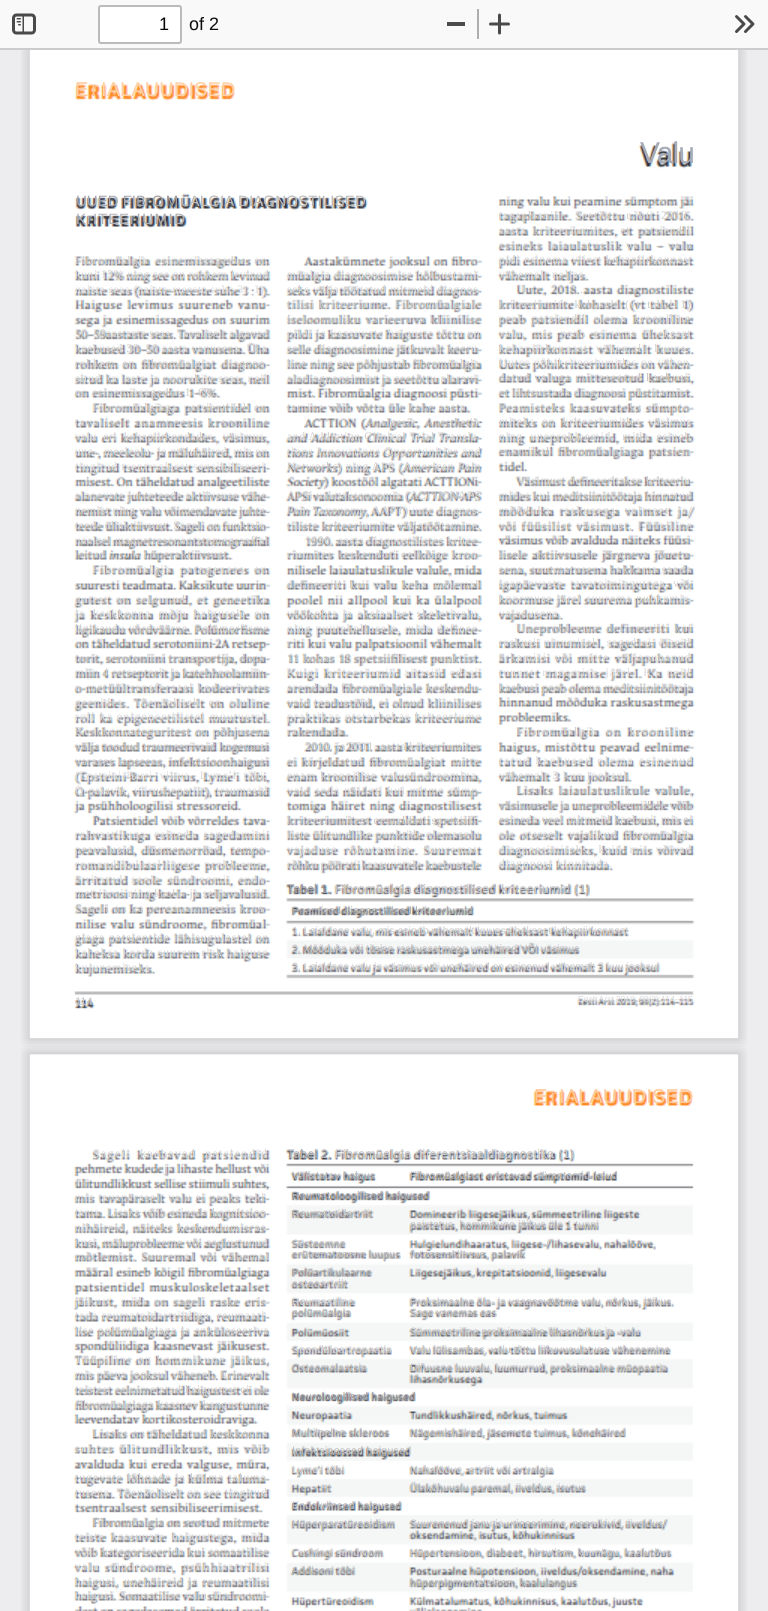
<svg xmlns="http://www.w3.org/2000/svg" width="768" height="1611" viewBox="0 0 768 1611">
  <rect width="100%" height="100%" fill="#ededf0"/>
  <rect x="0" y="48" width="768" height="2" fill="#cccccc"/>
  <rect x="0" y="0" width="768" height="48" fill="#f9f9fa"/>
  <image x="12" y="13" width="24" height="22" href="img1.png"/>
  <rect x="99" y="6" width="82" height="37" rx="2" fill="#ffffff" stroke="#bbbbbc" stroke-width="2"/>
  <text x="159" y="30" font-family="Liberation Sans" font-size="18" fill="#060606">1</text>
  <text x="189" y="30" font-family="Liberation Sans" font-size="18" fill="#0c0c0d">of 2</text>
  <rect x="447" y="22" width="18" height="4" fill="#4b4b4b"/>
  <rect x="477" y="9" width="2" height="30" fill="#aeaeaf"/>
  <image x="489" y="13" width="21" height="22" href="img2.png"/>
  <image x="735" y="15" width="20" height="18" href="img3.png"/>
  <image x="21" y="50" width="726" height="997" href="img4.png"/>
  <image x="30" y="50" width="708" height="988" href="img5.png"/>
  <text x="75" y="96" font-family="Liberation Sans" font-size="20" letter-spacing="3" fill="#ffca9b">Er</text>
  <text x="101" y="96" font-family="Liberation Sans" font-size="20" letter-spacing="0.1" fill="#ffd1a5">IALAUUDISED</text>
  <text x="640" y="163" font-family="Liberation Sans" font-size="30" letter-spacing="-1" fill="#a5acb8">Valu</text>
  <text x="76" y="206" font-family="Liberation Sans" font-size="15" fill="#a5a7b0">UUED FIB</text>
  <text x="145" y="206" font-family="Liberation Sans" font-size="15" letter-spacing="2" fill="#a39e9b">rOM</text>
  <text x="181" y="206" font-family="Liberation Sans" font-size="15" letter-spacing="0.15" fill="#bcbbbb">üALGIA DIAGNOSTILISED</text>
  <text x="76" y="224" font-family="Liberation Sans" font-size="15" letter-spacing="0.95" fill="#b4b5b9">KrITEE</text>
  <text x="130" y="224" font-family="Liberation Sans" font-size="15" letter-spacing="1.5" fill="#aeadae">rIUMID</text>
  <text x="499" y="219" font-family="Liberation Serif" font-size="11.6" letter-spacing="0.75" fill="#cfcecf" xml:space="preserve">tagaplaanile.  Seetõttu  nõuti  2016.</text>
  <text x="499" y="234" font-family="Liberation Serif" font-size="11.6" letter-spacing="0.8" fill="#cfcecf" xml:space="preserve">aasta  kriteeriumites,  et  patsiendil</text>
  <text x="499" y="249" font-family="Liberation Serif" font-size="11.6" letter-spacing="1.4" fill="#c5c4c7">esineks laiaulatuslik valu – valu</text>
  <text x="75" y="264" font-family="Liberation Serif" font-size="11.6" letter-spacing="0.9" fill="#cfcecf" xml:space="preserve">Fibromüalgia  esinemissagedus  on</text>
  <text x="478" y="264" font-family="Liberation Serif" font-size="11.6" fill="#dcdcdf">-</text>
  <text x="499" y="263" font-family="Liberation Serif" font-size="11.6" letter-spacing="0.85" fill="#d5d5d7">pidi esinema viiest kehapiirkonnast</text>
  <text x="75" y="278" font-family="Liberation Serif" font-size="11.6" letter-spacing="0.5" fill="#d5d5d7">kuni 12% ning see on rohkem levinud</text>
  <text x="287" y="278" font-family="Liberation Serif" font-size="11.6" letter-spacing="0.9" fill="#d5d5d7">müalgia diagnoosimise hõlbustami</text>
  <text x="499" y="278" font-family="Liberation Serif" font-size="11.6" letter-spacing="0.85" fill="#d5d5d7">vähemalt neljas.</text>
  <text x="75" y="293" font-family="Liberation Serif" font-size="11.6" letter-spacing="0.5" fill="#dcdcdf">naiste seas (naiste-meeste suhe 3 : 1).</text>
  <text x="287" y="293" font-family="Liberation Serif" font-size="11.6" letter-spacing="0.7" fill="#d5d5d7">seks välja töötatud mitmeid diagnos</text>
  <text x="580" y="293" font-family="Liberation Serif" font-size="11.6" letter-spacing="1" fill="#c9ccd0">.</text>
  <text x="287" y="308" font-family="Liberation Serif" font-size="11.6" letter-spacing="1.25" fill="#cfcecf">tilisi kriteeriume. Fibromüalgiale</text>
  <text x="499" y="308" font-family="Liberation Serif" font-size="11.6" letter-spacing="0.65" fill="#cfcecf" xml:space="preserve">kriteeriumite  kohaselt  (vt  tabel  1)</text>
  <text x="287" y="323" font-family="Liberation Serif" font-size="11.6" letter-spacing="1.15" fill="#c5c4c7">iseloomuliku varieeruva kliinilise</text>
  <text x="499" y="322" font-family="Liberation Serif" font-size="11.6" letter-spacing="0.9" fill="#cfcecf" xml:space="preserve">peab  patsiendil  olema  krooniline</text>
  <text x="75" y="337" font-family="Liberation Serif" font-size="11.6" letter-spacing="0.45" fill="#cfcecf">50–59aastaste seas. Tavaliselt algavad</text>
  <text x="287" y="337" font-family="Liberation Serif" font-size="11.6" letter-spacing="0.9" fill="#d5d5d7">pildi ja kaasuvate haiguste tõttu on</text>
  <text x="499" y="337" font-family="Liberation Serif" font-size="11.6" letter-spacing="0.85" fill="#d5d5d7" xml:space="preserve">valu,  mis  peab  esinema  üheksast</text>
  <text x="75" y="352" font-family="Liberation Serif" font-size="11.6" letter-spacing="0.6" fill="#cfcecf">kaebused 30–50 aasta vanusena. Üha</text>
  <text x="287" y="352" font-family="Liberation Serif" font-size="11.6" letter-spacing="0.75" fill="#c9ccd0">selle diagnoosimine jätkuvalt keeru</text>
  <text x="478" y="352" font-family="Liberation Serif" font-size="11.6" fill="#e4edf1">-</text>
  <text x="499" y="352" font-family="Liberation Serif" font-size="11.6" letter-spacing="1" fill="#d5d5d7" xml:space="preserve">kehapiirkonnast  vähemalt  kuues.</text>
  <text x="75" y="367" font-family="Liberation Serif" font-size="11.6" letter-spacing="0.75" fill="#cfcecf" xml:space="preserve">rohkem  on  fibromüalgiat  diagnoo</text>
  <text x="287" y="367" font-family="Liberation Serif" font-size="11.6" letter-spacing="0.65" fill="#cfcecf">line ning see põhjustab fibromüalgia</text>
  <text x="499" y="366" font-family="Liberation Serif" font-size="11.6" letter-spacing="0.85" fill="#dcdcdf">Uutes põhikriteeriumides on vähen</text>
  <text x="75" y="382" font-family="Liberation Serif" font-size="11.6" letter-spacing="0.75" fill="#d5d5d7">situd ka laste ja noorukite seas, neil</text>
  <text x="287" y="382" font-family="Liberation Serif" font-size="11.6" letter-spacing="0.75" fill="#cfcecf">aladiagnoosimist ja seetõttu alaravi</text>
  <text x="478" y="382" font-family="Liberation Serif" font-size="11.6" fill="#e4edf1">-</text>
  <text x="499" y="381" font-family="Liberation Serif" font-size="11.6" letter-spacing="1.1" fill="#cbc6c6">datud valuga mitteseotud kaebusi,</text>
  <text x="75" y="396" font-family="Liberation Serif" font-size="11.6" letter-spacing="0.8" fill="#cfcecf">on esinemissagedus 1–6%.</text>
  <text x="478" y="396" font-family="Liberation Serif" font-size="11.6" fill="#dcdcdf">-</text>
  <text x="499" y="396" font-family="Liberation Serif" font-size="11.6" letter-spacing="0.75" fill="#cfcecf">et lihtsustada diagnoosi püstitamist.</text>
  <text x="311" y="396" font-family="Liberation Serif" font-size="11.6" letter-spacing="0.85" fill="#c5c4c7">.</text>
  <text x="93" y="411" font-family="Liberation Serif" font-size="11.6" letter-spacing="0.75" fill="#cfcecf" xml:space="preserve">Fibromüalgiaga  patsientidel  on</text>
  <text x="287" y="411" font-family="Liberation Serif" font-size="11.6" letter-spacing="0.95" fill="#c5c4c7">tamine võib võtta üle kahe aasta.</text>
  <text x="499" y="411" font-family="Liberation Serif" font-size="11.6" letter-spacing="1.5" fill="#c9ccd0">Peamisteks kaasuvateks sümpto</text>
  <text x="690" y="411" font-family="Liberation Serif" font-size="11.6" fill="#dcdcdf">-</text>
  <text x="75" y="426" font-family="Liberation Serif" font-size="11.6" letter-spacing="1.45" fill="#c5c4c7">tavaliselt anamneesis krooniline</text>
  <text x="366" y="426" font-family="Liberation Serif" font-size="11.6" letter-spacing="0.4" fill="#c5c4c7" xml:space="preserve">Analgesic,  Anesthetic</text>
  <text x="499" y="425" font-family="Liberation Serif" font-size="11.6" letter-spacing="0.8" fill="#d5d5d7" xml:space="preserve">miteks  on  kriteeriumides  väsimus</text>
  <text x="75" y="440" font-family="Liberation Serif" font-size="11.6" letter-spacing="0.45" fill="#d5d5d7" xml:space="preserve">valu  eri  kehapiirkondades,  väsimus,</text>
  <text x="287" y="440" font-family="Liberation Serif" font-size="11.6" letter-spacing="0.65" fill="#d5d5d7">and Addiction Clinical Trial Transla</text>
  <text x="499" y="440" font-family="Liberation Serif" font-size="11.6" letter-spacing="0.85" fill="#d5d5d7" xml:space="preserve">ning  uneprobleemid,  mida  esineb</text>
  <text x="75" y="455" font-family="Liberation Serif" font-size="11.6" letter-spacing="0.45" fill="#d5d5d7">une-, meeleolu- ja mäluhäired, mis on</text>
  <text x="287" y="455" font-family="Liberation Serif" font-size="11.6" letter-spacing="0.8" fill="#d5d5d7">tions Innovations Opportunities and</text>
  <text x="499" y="455" font-family="Liberation Serif" font-size="11.6" letter-spacing="1" fill="#c5c4c7" xml:space="preserve">enamikul  fibromüalgiaga  patsien</text>
  <text x="690" y="455" font-family="Liberation Serif" font-size="11.6" fill="#d5d5d7">-</text>
  <text x="75" y="470" font-family="Liberation Serif" font-size="11.6" letter-spacing="0.85" fill="#dcdcdf">tingitud tsentraalsest sensibiliseeri</text>
  <text x="287" y="470" font-family="Liberation Serif" font-size="11.6" letter-spacing="0.7" fill="#cfcecf">Networks</text>
  <text x="338" y="470" font-family="Liberation Serif" font-size="11.6" letter-spacing="0.6" fill="#d5d5d7">) ning APS (</text>
  <text x="403" y="470" font-family="Liberation Serif" font-size="11.6" letter-spacing="0.7" fill="#cfcecf">American Pain</text>
  <text x="86" y="485" font-family="Liberation Serif" font-size="11.6" letter-spacing="0.8" fill="#bcbbbb">i</text>
  <text x="110" y="485" font-family="Liberation Serif" font-size="11.6" letter-spacing="0.8" fill="#bcbbbb">.</text>
  <text x="399" y="485" font-family="Liberation Serif" font-size="11.6" fill="#cfcecf">t</text>
  <text x="517" y="484" font-family="Liberation Serif" font-size="11.6" letter-spacing="0.6" fill="#cfd2d5">Väsimust defineeritakse kriteeriu</text>
  <text x="690" y="484" font-family="Liberation Serif" font-size="11.6" fill="#e4edf1">-</text>
  <text x="75" y="499" font-family="Liberation Serif" font-size="11.6" letter-spacing="0.65" fill="#cfcecf">alanevate juhteteede aktiivsuse vähe</text>
  <text x="266" y="499" font-family="Liberation Serif" font-size="11.6" fill="#e4edf1">-</text>
  <text x="287" y="499" font-family="Liberation Serif" font-size="11.6" letter-spacing="0.4" fill="#cfcecf">APSi valutaksonoomia (</text>
  <text x="410" y="499" font-family="Liberation Serif" font-size="11.6" letter-spacing="-0.5" fill="#c9ccd0">ACTTION</text>
  <text x="458" y="499" font-family="Liberation Serif" font-size="11.6" letter-spacing="0.6" fill="#d5d5d7">APS</text>
  <text x="499" y="499" font-family="Liberation Serif" font-size="11.6" letter-spacing="0.65" fill="#cfcecf">mides kui meditsiinitöötaja hinnatud</text>
  <text x="75" y="514" font-family="Liberation Serif" font-size="11.6" letter-spacing="0.55" fill="#cfcecf">nemist ning valu võimendavate juhte</text>
  <text x="266" y="514" font-family="Liberation Serif" font-size="11.6" fill="#e4edf1">-</text>
  <text x="287" y="514" font-family="Liberation Serif" font-size="11.6" letter-spacing="0.5" fill="#cfcecf">Pain Taxonomy</text>
  <text x="366" y="514" font-family="Liberation Serif" font-size="11.6" letter-spacing="0.5" fill="#d5d5d7">, AAPT) uute diagnos</text>
  <text x="478" y="514" font-family="Liberation Serif" font-size="11.6" fill="#e4edf1">-</text>
  <text x="499" y="514" font-family="Liberation Serif" font-size="11.6" letter-spacing="1.25" fill="#cfcecf" xml:space="preserve">mõõduka  raskusega  vaimset  ja/</text>
  <text x="75" y="529" font-family="Liberation Serif" font-size="11.6" letter-spacing="0.4" fill="#cfcecf">teede üliaktiivsust. Sageli on funktsio</text>
  <text x="266" y="529" font-family="Liberation Serif" font-size="11.6" fill="#eaf0f1">-</text>
  <text x="287" y="529" font-family="Liberation Serif" font-size="11.6" letter-spacing="0.85" fill="#cfcecf">tiliste kriteeriumite väljatöötamine.</text>
  <text x="499" y="529" font-family="Liberation Serif" font-size="11.6" letter-spacing="1.4" fill="#cfcecf">või füüsilist väsimust. Füüsiline</text>
  <text x="75" y="544" font-family="Liberation Serif" font-size="11.6" letter-spacing="0.6" fill="#cfcecf">naalsel magnetresonantstomograafial</text>
  <text x="305" y="544" font-family="Liberation Serif" font-size="11.6" letter-spacing="0.65" fill="#d5d5d7">1990. aasta diagnostilistes kritee</text>
  <text x="478" y="544" font-family="Liberation Serif" font-size="11.6" fill="#e4edf1">-</text>
  <text x="690" y="543" font-family="Liberation Serif" font-size="11.6" fill="#dcdcdf">-</text>
  <text x="75" y="558" font-family="Liberation Serif" font-size="11.6" letter-spacing="0.75" fill="#c5c4c7">leitud</text>
  <text x="144" y="558" font-family="Liberation Serif" font-size="11.6" letter-spacing="0.85" fill="#cbc6c6">hüperaktiivsust.</text>
  <text x="287" y="558" font-family="Liberation Serif" font-size="11.6" letter-spacing="1" fill="#cfcecf">riumites keskenduti eelkõige kroo</text>
  <text x="478" y="558" font-family="Liberation Serif" font-size="11.6" fill="#dcdcdf">-</text>
  <text x="499" y="558" font-family="Liberation Serif" font-size="11.6" letter-spacing="0.65" fill="#c5c4c7" xml:space="preserve">lisele  aktiivsusele  järgneva  jõuetu</text>
  <text x="690" y="558" font-family="Liberation Serif" font-size="11.6" fill="#dcdcdf">-</text>
  <text x="93" y="573" font-family="Liberation Serif" font-size="11.6" letter-spacing="1.35" fill="#cfcecf" xml:space="preserve">Fibromüalgia  patogenees  on</text>
  <text x="499" y="573" font-family="Liberation Serif" font-size="11.6" letter-spacing="0.95" fill="#cfcecf">sena, suutmatusena hakkama saada</text>
  <text x="266" y="588" font-family="Liberation Serif" font-size="11.6" fill="#dde2e3">-</text>
  <text x="287" y="588" font-family="Liberation Serif" font-size="11.6" letter-spacing="0.65" fill="#cfcecf" xml:space="preserve">defineeriti  kui  valu  keha  mõlemal</text>
  <text x="499" y="587" font-family="Liberation Serif" font-size="11.6" letter-spacing="0.9" fill="#d5d5d7" xml:space="preserve">igapäevaste  tavatoimingutega  või</text>
  <text x="75" y="603" font-family="Liberation Serif" font-size="11.6" letter-spacing="0.9" fill="#cfcecf" xml:space="preserve">gutest  on  selgunud,  et  geneetika</text>
  <text x="406" y="603" font-family="Liberation Serif" font-size="11.6" letter-spacing="0.65" fill="#cfcecf">i</text>
  <text x="499" y="602" font-family="Liberation Serif" font-size="11.6" letter-spacing="1" fill="#d5d5d7">koormuse järel suurema puhkamis</text>
  <text x="75" y="617" font-family="Liberation Serif" font-size="11.6" letter-spacing="0.95" fill="#d5d5d7" xml:space="preserve">ja  keskkonna  mõju  haigusele  on</text>
  <text x="287" y="617" font-family="Liberation Serif" font-size="11.6" letter-spacing="1.05" fill="#d5d5d7">vöökohta ja aksiaalset skeletivalu,</text>
  <text x="499" y="617" font-family="Liberation Serif" font-size="11.6" letter-spacing="0.8" fill="#d5d5d7">vajadusena.</text>
  <text x="75" y="632" font-family="Liberation Serif" font-size="11.6" letter-spacing="0.7" fill="#cfcecf">ligikaudu võrdväärne. Polümorfisme</text>
  <text x="287" y="632" font-family="Liberation Serif" font-size="11.6" letter-spacing="1.05" fill="#d5d5d7">ning puutehellusele, mida definee</text>
  <text x="517" y="632" font-family="Liberation Serif" font-size="11.6" letter-spacing="1.1" fill="#c5c4c7" xml:space="preserve">Uneprobleeme  defineeriti  kui</text>
  <text x="287" y="647" font-family="Liberation Serif" font-size="11.6" letter-spacing="0.9" fill="#cbc6c6">r</text>
  <text x="499" y="646" font-family="Liberation Serif" font-size="11.6" letter-spacing="0.7" fill="#d5d5d7" xml:space="preserve">raskusi  uinumisel,  sagedasi  öiseid</text>
  <text x="75" y="662" font-family="Liberation Serif" font-size="11.6" letter-spacing="0.85" fill="#cbc6c6">torit, serotoniini transportija, dopa</text>
  <text x="287" y="662" font-family="Liberation Serif" font-size="11.6" letter-spacing="0.85" fill="#c9ccd0">11 kohas 18 spetsiifilisest punktist.</text>
  <text x="499" y="661" font-family="Liberation Serif" font-size="11.6" letter-spacing="1" fill="#d5d5d7" xml:space="preserve">ärkamisi  või  mitte  väljapuhanud</text>
  <text x="75" y="676" font-family="Liberation Serif" font-size="11.6" letter-spacing="0.65" fill="#cfcecf">miin 4 retseptorit ja katehhoolamiin-</text>
  <text x="287" y="676" font-family="Liberation Serif" font-size="11.6" letter-spacing="1.05" fill="#dcdcdf" xml:space="preserve">Kuigi  kriteeriumid  aitasid  edasi</text>
  <text x="499" y="676" font-family="Liberation Serif" font-size="11.6" letter-spacing="1.05" fill="#dcdcdf" xml:space="preserve">tunnet  magamise  järel.  Ka  neid</text>
  <text x="75" y="691" font-family="Liberation Serif" font-size="11.6" letter-spacing="1.15" fill="#cfcecf">o-metüültransferaasi kodeerivates</text>
  <text x="287" y="691" font-family="Liberation Serif" font-size="11.6" letter-spacing="1" fill="#cfcecf">arendada fibromüalgiale keskendu</text>
  <text x="478" y="691" font-family="Liberation Serif" font-size="11.6" fill="#e4edf1">-</text>
  <text x="499" y="691" font-family="Liberation Serif" font-size="11.6" letter-spacing="0.6" fill="#cfcecf">kaebusi peab olema meditsiinitöötaja</text>
  <text x="75" y="706" font-family="Liberation Serif" font-size="11.6" letter-spacing="0.85" fill="#d5d5d7" xml:space="preserve">geenides.  Tõenäoliselt  on  oluline</text>
  <text x="287" y="706" font-family="Liberation Serif" font-size="11.6" letter-spacing="0.9" fill="#cfcecf">vaid teadustöid, ei olnud kliinilises</text>
  <text x="75" y="720" font-family="Liberation Serif" font-size="11.6" letter-spacing="1.15" fill="#dcdcdf">roll ka epigeneetilistel muutustel.</text>
  <text x="287" y="720" font-family="Liberation Serif" font-size="11.6" letter-spacing="1.25" fill="#dbd9d8">praktikas otstarbekas kriteeriume</text>
  <text x="568" y="720" font-family="Liberation Serif" font-size="11.6" letter-spacing="1" fill="#cbc6c6">.</text>
  <text x="75" y="735" font-family="Liberation Serif" font-size="11.6" letter-spacing="1.1" fill="#cfcecf">Keskkonnateguritest on põhjusena</text>
  <text x="287" y="735" font-family="Liberation Serif" font-size="11.6" letter-spacing="1" fill="#d1cac5">rakendada.</text>
  <text x="517" y="735" font-family="Liberation Serif" font-size="11.6" letter-spacing="1.5" fill="#cfcecf" xml:space="preserve">Fibromüalgia  on  krooniline</text>
  <text x="75" y="750" font-family="Liberation Serif" font-size="11.6" letter-spacing="0.6" fill="#c5c4c7">välja toodud traumeerivaid kogemusi</text>
  <text x="305" y="750" font-family="Liberation Serif" font-size="11.6" letter-spacing="0.45" fill="#cfcecf">2010. ja 2011. aasta kriteeriumites</text>
  <text x="690" y="750" font-family="Liberation Serif" font-size="11.6" fill="#dcdcdf">-</text>
  <text x="75" y="765" font-family="Liberation Serif" font-size="11.6" letter-spacing="0.75" fill="#c5c4c7">varases lapseeas, infektsioonhaigusi</text>
  <text x="287" y="765" font-family="Liberation Serif" font-size="11.6" letter-spacing="0.8" fill="#cfcecf" xml:space="preserve">ei  kirjeldatud  fibromüalgiat  mitte</text>
  <text x="499" y="764" font-family="Liberation Serif" font-size="11.6" letter-spacing="1.75" fill="#dcdcdf">tatud kaebused olema esinenud</text>
  <text x="75" y="779" font-family="Liberation Serif" font-size="11.6" letter-spacing="0.55" fill="#dcdcdf" xml:space="preserve">(Epsteini-Barri  viirus,  Lyme’i  tõbi,</text>
  <text x="287" y="779" font-family="Liberation Serif" font-size="11.6" letter-spacing="1.05" fill="#d5d5d7">enam kroonilise valusündroomina,</text>
  <text x="499" y="779" font-family="Liberation Serif" font-size="11.6" letter-spacing="0.9" fill="#d5d5d7">vähemalt 3 kuu jooksul.</text>
  <text x="75" y="794" font-family="Liberation Serif" font-size="11.6" letter-spacing="0.65" fill="#d5d5d7">Q-palavik, viirushepatiit), traumasid</text>
  <text x="287" y="794" font-family="Liberation Serif" font-size="11.6" letter-spacing="1.1" fill="#d5d5d7">vaid seda näidati kui mitme sümp</text>
  <text x="517" y="794" font-family="Liberation Serif" font-size="11.6" letter-spacing="1.25" fill="#c5c4c7">Lisaks laiaulatuslikule valule,</text>
  <text x="377" y="809" font-family="Liberation Serif" font-size="11.6" letter-spacing="0.8" fill="#c5c4c7">i</text>
  <text x="451" y="809" font-family="Liberation Serif" font-size="11.6" letter-spacing="0.8" fill="#c5c4c7">l</text>
  <text x="499" y="809" font-family="Liberation Serif" font-size="11.6" letter-spacing="0.6" fill="#c5c4c7">väsimusele ja uneprobleemidele võib</text>
  <text x="116" y="824" font-family="Liberation Serif" font-size="11.6" letter-spacing="0.85" fill="#c5c4c7">i</text>
  <text x="287" y="824" font-family="Liberation Serif" font-size="11.6" letter-spacing="1" fill="#cbc6c6">kriteeriumitest eemaldati spetsiifi</text>
  <text x="499" y="823" font-family="Liberation Serif" font-size="11.6" letter-spacing="0.65" fill="#cfcecf">esineda veel mitmeid kaebusi, mis ei</text>
  <text x="75" y="838" font-family="Liberation Serif" font-size="11.6" letter-spacing="1" fill="#d5d5d7" xml:space="preserve">rahvastikuga  esineda  sagedamini</text>
  <text x="287" y="838" font-family="Liberation Serif" font-size="11.6" letter-spacing="0.75" fill="#cfcecf">liste ülitundlike punktide olemasolu</text>
  <text x="499" y="838" font-family="Liberation Serif" font-size="11.6" letter-spacing="0.6" fill="#cfcecf" xml:space="preserve">ole  otseselt  vajalikud  fibromüalgia</text>
  <text x="75" y="853" font-family="Liberation Serif" font-size="11.6" letter-spacing="0.85" fill="#cfcecf" xml:space="preserve">peavalusid,  düsmenorröad,  tempo</text>
  <text x="287" y="853" font-family="Liberation Serif" font-size="11.6" letter-spacing="1.25" fill="#d5d5d7" xml:space="preserve">vajaduse  rõhutamine.  Suuremat</text>
  <text x="499" y="853" font-family="Liberation Serif" font-size="11.6" letter-spacing="0.75" fill="#d5d5d7" xml:space="preserve">diagnoosimiseks,  kuid  mis  võivad</text>
  <text x="75" y="868" font-family="Liberation Serif" font-size="11.6" letter-spacing="1.15" fill="#d5d5d7" xml:space="preserve">romandibulaarliigese  probleeme,</text>
  <text x="287" y="868" font-family="Liberation Serif" font-size="11.6" letter-spacing="0.6" fill="#cfcecf">rõhku pöörati kaasuvatele kaebustele</text>
  <text x="499" y="867" font-family="Liberation Serif" font-size="11.6" letter-spacing="1" fill="#dcdcdf">diagnoosi kinnitada.</text>
  <text x="75" y="883" font-family="Liberation Serif" font-size="11.6" letter-spacing="1" fill="#d5d5d7" xml:space="preserve">ärritatud  soole  sündroomi,  endo</text>
  <text x="75" y="897" font-family="Liberation Serif" font-size="11.6" letter-spacing="0.6" fill="#cfcecf">metrioosi ning kaela- ja seljavalusid.</text>
  <text x="287" y="893" font-family="Liberation Sans" font-size="12.5" fill="#a5a2a8">Tabel 1.</text>
  <text x="335" y="893" font-family="Liberation Sans" font-size="12.5" letter-spacing="0.4" fill="#c5c4c7">Fibromüalgia diagnostilised kriteeriumid (1)</text>
  <text x="75" y="912" font-family="Liberation Serif" font-size="11.6" letter-spacing="1" fill="#c9ccd0">Sageli on ka pereanamneesis kroo</text>
  <text x="266" y="912" font-family="Liberation Serif" font-size="11.6" fill="#dde2e3">-</text>
  <text x="292" y="914" font-family="Liberation Sans" font-size="10.6" letter-spacing="0.25" fill="#aeadae">Peamised diagnostilised kriteeriumid</text>
  <text x="266" y="927" font-family="Liberation Serif" font-size="11.6" fill="#dde2e3">-</text>
  <text x="203" y="927" font-family="Liberation Serif" font-size="11.6" letter-spacing="1" fill="#cbc6c6">,</text>
  <text x="292" y="934" font-family="Liberation Sans" font-size="10.6" fill="#cfcecf">1. Laialdane valu, mis esineb vähemalt kuues üheksast kehapiirkonnast</text>
  <text x="75" y="941" font-family="Liberation Serif" font-size="11.6" letter-spacing="1" fill="#cfcecf">giaga patsientide lähisugulastel on</text>
  <text x="75" y="956" font-family="Liberation Serif" font-size="11.6" letter-spacing="0.95" fill="#d5d5d7">kaheksa korda suurem risk haiguse</text>
  <text x="292" y="952" font-family="Liberation Sans" font-size="10.6" letter-spacing="-0.05" fill="#c5c4c7">2. Mõõduka või tõsise raskusastmega unehäired VÕI väsimus</text>
  <text x="75" y="971" font-family="Liberation Serif" font-size="11.6" letter-spacing="0.95" fill="#d5d5d7">kujunemiseks.</text>
  <text x="292" y="970" font-family="Liberation Sans" font-size="10.6" letter-spacing="-0.05" fill="#cfcecf">3. Laialdane valu ja väsimus või unehäired on esinenud vähemalt 3 kuu jooksul</text>
  <text x="75" y="1005" font-family="Liberation Sans" font-size="11" fill="#c5c4c7">114</text>
  <text x="578" y="1002" font-family="Liberation Sans" font-size="8.75" letter-spacing="-0.15" fill="#dcdcdf">Eesti Arst 2019; 98(2):114–115</text>
  <image x="21" y="1046" width="726" height="565" href="img6.png"/>
  <image x="30" y="1054" width="708" height="557" href="img7.png"/>
  <text x="534" y="1103" font-family="Liberation Sans" font-size="20" letter-spacing="3" fill="#ffc594">Er</text>
  <text x="559" y="1103" font-family="Liberation Sans" font-size="20" letter-spacing="0.1" fill="#ffca9b">IALAUUDISED</text>
  <text x="93" y="1157" font-family="Liberation Serif" font-size="11.6" letter-spacing="1.55" fill="#d5d5d7" xml:space="preserve">Sageli  kaebavad  patsiendid</text>
  <text x="287" y="1158" font-family="Liberation Sans" font-size="12.5" letter-spacing="0.08" fill="#b4b5b9">Tabel 2.</text>
  <text x="335" y="1158" font-family="Liberation Sans" font-size="12.5" letter-spacing="0.35" fill="#c5c4c7">Fibromüalgia diferentsiaaldiagnostika (1)</text>
  <text x="164" y="1172" font-family="Liberation Serif" font-size="11.6" letter-spacing="0.6" fill="#c5c4c7">j</text>
  <text x="292" y="1179" font-family="Liberation Sans" font-size="10.6" letter-spacing="0.2" fill="#b4b5b9">Välistatav haigus</text>
  <text x="410" y="1179" font-family="Liberation Sans" font-size="10.6" letter-spacing="0.3" fill="#b4b5b9">Fibromüalgiast eristavad sümptomid-leiud</text>
  <text x="75" y="1201" font-family="Liberation Serif" font-size="11.6" letter-spacing="0.9" fill="#cfcecf">mis tavapäraselt valu ei peaks teki</text>
  <text x="292" y="1199" font-family="Liberation Sans" font-size="10.6" letter-spacing="0.2" fill="#a5a7b0">Reumatoloogilised haigused</text>
  <text x="75" y="1216" font-family="Liberation Serif" font-size="11.6" letter-spacing="0.55" fill="#cfcecf">tama. Lisaks võib esineda kognitsioo</text>
  <text x="292" y="1217" font-family="Liberation Sans" font-size="10.6" letter-spacing="0.4" fill="#bcbbbb">Reumatoidartriit</text>
  <text x="528" y="1217" font-family="Liberation Sans" font-size="10.6" fill="#bcbbbb">,</text>
  <text x="605" y="1217" font-family="Liberation Sans" font-size="10.6" fill="#bcbbbb">l</text>
  <text x="75" y="1231" font-family="Liberation Serif" font-size="11.6" letter-spacing="1.05" fill="#cfcecf">nihäireid, näiteks keskendumisras</text>
  <text x="410" y="1228" font-family="Liberation Sans" font-size="10.6" letter-spacing="0.1" fill="#c5c4c7">paistetus, hommikune jäikus üle 1 tunni</text>
  <text x="75" y="1246" font-family="Liberation Serif" font-size="11.6" letter-spacing="0.55" fill="#cfcecf">kusi, mäluprobleeme või aeglustunud</text>
  <text x="292" y="1247" font-family="Liberation Sans" font-size="10.6" fill="#c5c4c7">Süsteemne</text>
  <text x="546" y="1247" font-family="Liberation Sans" font-size="10.6" letter-spacing="0.08" fill="#c5c4c7">/</text>
  <text x="597" y="1247" font-family="Liberation Sans" font-size="10.6" letter-spacing="0.08" fill="#c5c4c7">,</text>
  <text x="75" y="1260" font-family="Liberation Serif" font-size="11.6" letter-spacing="1.25" fill="#cbc6c6">mõtlemist. Suuremal või vähemal</text>
  <text x="292" y="1258" font-family="Liberation Sans" font-size="10.6" letter-spacing="0.2" fill="#bcbbbb">erütematoosne luupus</text>
  <text x="410" y="1258" font-family="Liberation Sans" font-size="10.6" letter-spacing="0.2" fill="#bcbbbb">fotosensitiivsus, palavik</text>
  <text x="292" y="1276" font-family="Liberation Sans" font-size="10.6" letter-spacing="0.2" fill="#b4b5b9">Polüartikulaarne</text>
  <text x="473" y="1276" font-family="Liberation Sans" font-size="10.6" letter-spacing="0.15" fill="#b4b5b9">,</text>
  <text x="598" y="1276" font-family="Liberation Sans" font-size="10.6" letter-spacing="0.15" fill="#b4b5b9">l</text>
  <text x="292" y="1287" font-family="Liberation Sans" font-size="10.6" letter-spacing="0.5" fill="#c5c4c7">osteoartriit</text>
  <text x="75" y="1305" font-family="Liberation Serif" font-size="11.6" letter-spacing="0.65" fill="#cfcecf" xml:space="preserve">jäikust,  mida  on  sageli  raske  eris</text>
  <text x="266" y="1305" font-family="Liberation Serif" font-size="11.6" fill="#dde2e3">-</text>
  <text x="292" y="1305" font-family="Liberation Sans" font-size="10.6" fill="#c9ccd0">Reumaatiline</text>
  <text x="410" y="1305" font-family="Liberation Sans" font-size="10.6" fill="#c5c4c7">Proksimaalne õla- ja vaagnavöötme valu, nõrkus, jäikus.</text>
  <text x="75" y="1319" font-family="Liberation Serif" font-size="11.6" letter-spacing="0.95" fill="#d5d5d7">tada reumatoidartriidiga, reumaati</text>
  <text x="292" y="1316" font-family="Liberation Sans" font-size="10.6" letter-spacing="0.2" fill="#bcbbbb">polümüalgia</text>
  <text x="410" y="1316" font-family="Liberation Sans" font-size="10.6" letter-spacing="-0.25" fill="#c5c4c7">Sage vanemas eas</text>
  <text x="75" y="1334" font-family="Liberation Serif" font-size="11.6" letter-spacing="0.8" fill="#cfcecf">lise polümüalgiaga ja anküloseeriva</text>
  <text x="410" y="1335" font-family="Liberation Sans" font-size="10.6" letter-spacing="0.05" fill="#c5c4c7">Sümmeetriline proksimaalne lihasnõrkus ja -valu</text>
  <text x="292" y="1353" font-family="Liberation Sans" font-size="10.6" letter-spacing="0.25" fill="#cfcecf">Spondüloartropaatia</text>
  <text x="410" y="1353" font-family="Liberation Sans" font-size="10.6" letter-spacing="0.1" fill="#c5c4c7">Valu lülisambas, valu tõttu liikuvusulatuse vähenemine</text>
  <text x="75" y="1363" font-family="Liberation Serif" font-size="11.6" letter-spacing="1.5" fill="#cfd2d5">Tüüpiline on hommikune jäikus,</text>
  <text x="75" y="1378" font-family="Liberation Serif" font-size="11.6" letter-spacing="0.55" fill="#cfcecf">mis päeva jooksul väheneb. Erinevalt</text>
  <text x="292" y="1371" font-family="Liberation Sans" font-size="10.6" letter-spacing="0.1" fill="#bebfc3">Osteomalaatsia</text>
  <text x="410" y="1371" font-family="Liberation Sans" font-size="10.6" letter-spacing="0.08" fill="#c5c4c7">Difuusne luuvalu, luumurrud, proksimaalne müopaatia</text>
  <text x="75" y="1393" font-family="Liberation Serif" font-size="11.6" letter-spacing="0.55" fill="#cfcecf">teistest eelnimetatud haigustest ei ole</text>
  <text x="292" y="1400" font-family="Liberation Sans" font-size="10.6" letter-spacing="0.2" fill="#a5a2a8">Neuroloogilised haigused</text>
  <text x="75" y="1408" font-family="Liberation Serif" font-size="11.6" letter-spacing="0.6" fill="#cfcecf">fibromüalgiaga kaasnev kangustunne</text>
  <text x="254" y="1422" font-family="Liberation Serif" font-size="11.6" letter-spacing="0.8" fill="#c9ccd0">.</text>
  <text x="93" y="1437" font-family="Liberation Serif" font-size="11.6" letter-spacing="0.9" fill="#c9ccd0">Lisaks on täheldatud keskkonna</text>
  <text x="292" y="1436" font-family="Liberation Sans" font-size="10.6" letter-spacing="0.25" fill="#bcbbbb">Multiipelne skleroos</text>
  <text x="410" y="1436" font-family="Liberation Sans" font-size="10.6" letter-spacing="0.08" fill="#bfc2c9">Nägemishäired, jäsemete tuimus, kõnehäired</text>
  <text x="75" y="1452" font-family="Liberation Serif" font-size="11.6" letter-spacing="1.7" fill="#d6d2ce">suhtes ülitundlikkust, mis võib</text>
  <text x="292" y="1454" font-family="Liberation Sans" font-size="10.6" letter-spacing="0.25" fill="#bcbbbb">Infektsioossed haigused</text>
  <text x="292" y="1473" font-family="Liberation Sans" font-size="10.6" letter-spacing="0.2" fill="#cfcecf">Lyme’i tõbi</text>
  <text x="410" y="1473" font-family="Liberation Sans" font-size="10.6" letter-spacing="0.2" fill="#c9ccd0">Nahalööve, artriit või artralgia</text>
  <text x="75" y="1481" font-family="Liberation Serif" font-size="11.6" letter-spacing="1.1" fill="#cfcecf">tugevate lõhnade ja külma taluma</text>
  <text x="75" y="1496" font-family="Liberation Serif" font-size="11.6" letter-spacing="0.8" fill="#d5d5d7">tusena. Tõenäoliselt on see tingitud</text>
  <text x="328" y="1491" font-family="Liberation Sans" font-size="10.6" letter-spacing="0.45" fill="#c5c4c7">t</text>
  <text x="410" y="1491" font-family="Liberation Sans" font-size="10.6" letter-spacing="0.05" fill="#bfc2c9">Ülakõhuvalu paremal, iiveldus, isutus</text>
  <text x="292" y="1509" font-family="Liberation Sans" font-size="10.6" letter-spacing="0.1" fill="#b4b5b9">Endokriinsed haigused</text>
  <text x="93" y="1526" font-family="Liberation Serif" font-size="11.6" letter-spacing="0.8" fill="#bfc2c9">Fibromüalgia on seotud mitmete</text>
  <text x="292" y="1527" font-family="Liberation Sans" font-size="10.6" letter-spacing="0.25" fill="#bfc2c9">Hüperparatüreoidism</text>
  <text x="410" y="1527" font-family="Liberation Sans" font-size="10.6" letter-spacing="0.1" fill="#c5c4c7">Suurenenud janu ja urineerimine, neerukivid, iiveldus/</text>
  <text x="75" y="1540" font-family="Liberation Serif" font-size="11.6" letter-spacing="0.8" fill="#d5d5d7" xml:space="preserve">teiste  kaasuvate  haigustega,  mida</text>
  <text x="75" y="1555" font-family="Liberation Serif" font-size="11.6" letter-spacing="0.75" fill="#cfcecf">võib kategoriseerida kui somaatilise</text>
  <text x="292" y="1556" font-family="Liberation Sans" font-size="10.6" fill="#c5c4c7">Cushingi sündroom</text>
  <text x="410" y="1556" font-family="Liberation Sans" font-size="10.6" letter-spacing="0.1" fill="#c5c4c7">Hüpertensioon, diabeet, hirsutism, kuunägu, kaalutõus</text>
  <text x="75" y="1570" font-family="Liberation Serif" font-size="11.6" letter-spacing="1.25" fill="#d5d5d7" xml:space="preserve">valu  sündroome,  psühhiaatrilisi</text>
  <text x="292" y="1574" font-family="Liberation Sans" font-size="10.6" letter-spacing="0.2" fill="#b7bcc1">Addisoni tõbi</text>
  <text x="75" y="1585" font-family="Liberation Serif" font-size="11.6" letter-spacing="1.1" fill="#cfcecf">haigusi, unehäireid ja reumaatilisi</text>
  <text x="410" y="1586" font-family="Liberation Sans" font-size="10.6" letter-spacing="0.2" fill="#bcbbbb">hüperpigmentatsioon, kaalulangus</text>
  <text x="75" y="1599" font-family="Liberation Serif" font-size="11.6" letter-spacing="0.65" fill="#cfcecf">haigusi. Somaatilise valu sündroomi</text>
  <text x="266" y="1599" font-family="Liberation Serif" font-size="11.6" fill="#dde2e3">-</text>
</svg>
